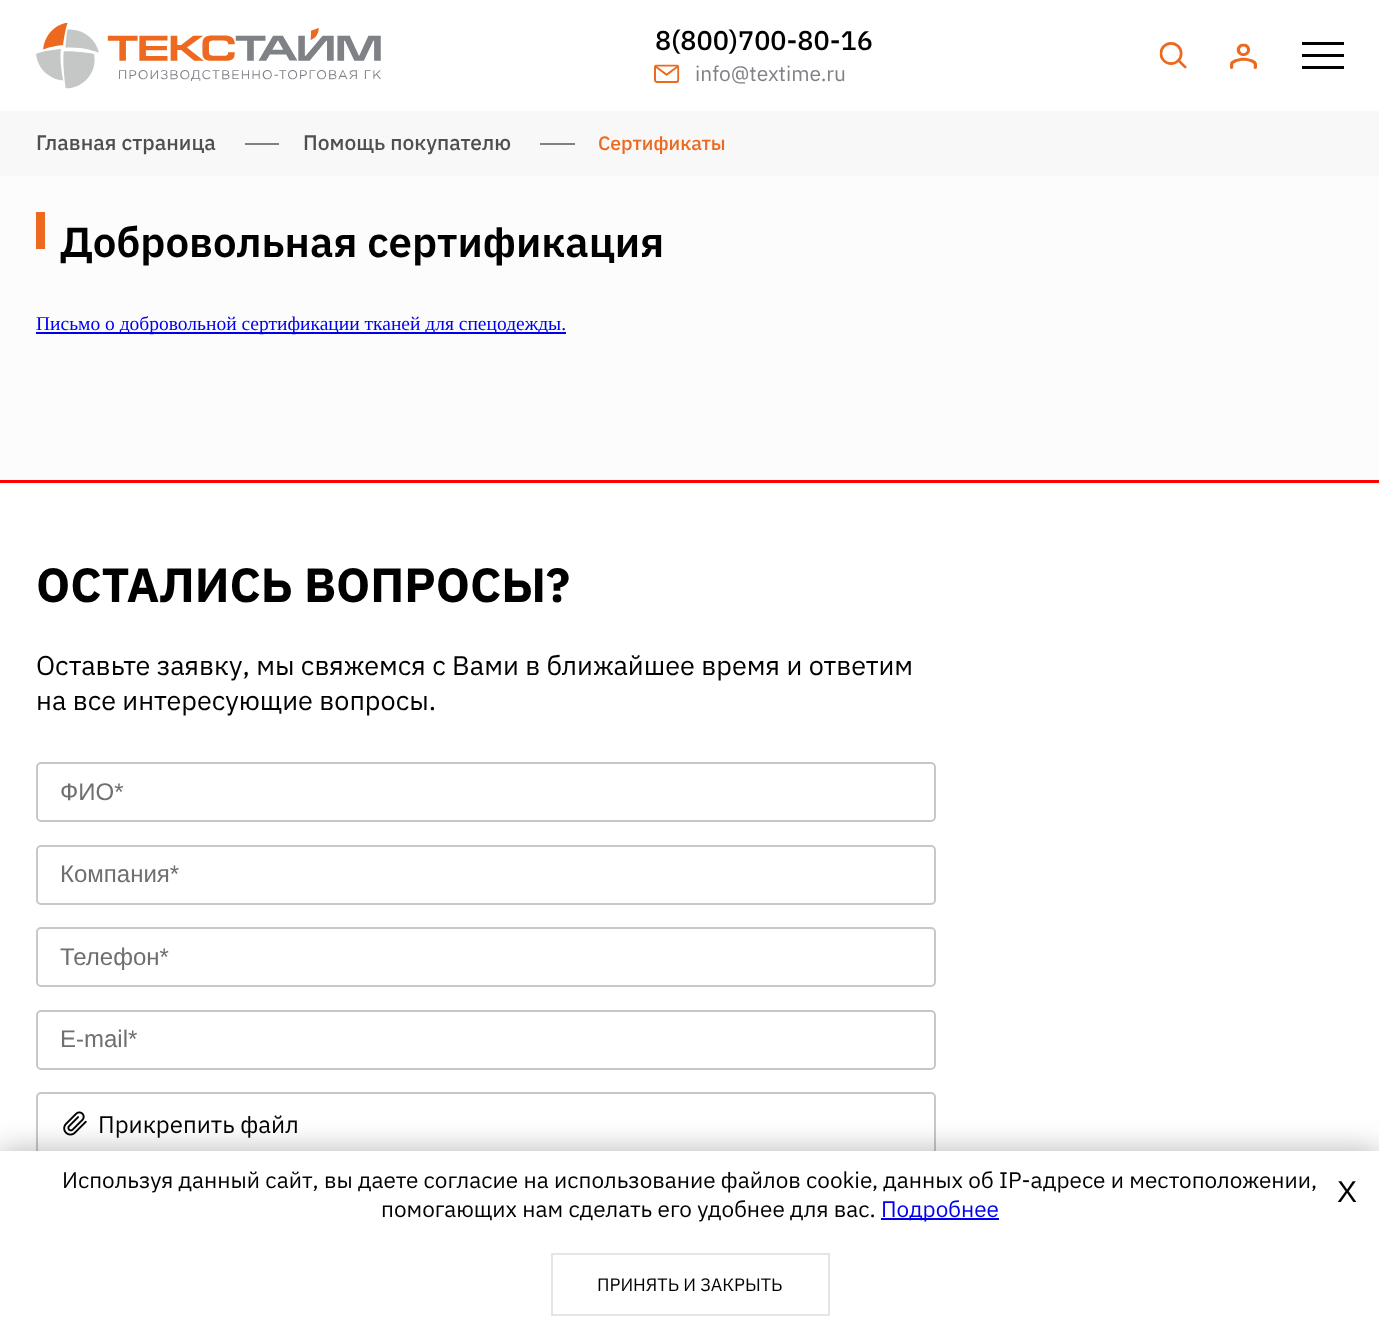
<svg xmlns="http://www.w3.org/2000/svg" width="1379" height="1330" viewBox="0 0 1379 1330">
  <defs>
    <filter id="blur1" x="-50%" y="-200%" width="200%" height="500%"><feGaussianBlur stdDeviation="15"/></filter>
  </defs>
  <rect width="100%" height="100%" fill="#fcfcfc"/>
  <rect x="0" y="0" width="1379" height="111" fill="#ffffff"/>
  <image x="36" y="23" width="345" height="66" href="img1.png"/>
  <text x="655" y="50" font-family="IBM Plex Sans" font-size="27" font-weight="500" fill="#000000">8(800)700-80-16</text>
  <image x="654" y="64" width="26" height="19" href="img2.png"/>
  <text x="695" y="81" font-family="IBM Plex Sans" font-size="21" fill="#7e8186">info@textime.ru</text>
  <image x="1159" y="42" width="28" height="27" href="img3.png"/>
  <image x="1230" y="43" width="27" height="26" href="img4.png"/>
  <rect x="1302" y="54" width="42" height="3" fill="#000000"/>
  <rect x="1302" y="42" width="42" height="3" fill="#000000"/>
  <rect x="1302" y="66" width="42" height="3" fill="#000000"/>
  <rect x="0" y="111" width="1379" height="65" fill="#f8f8f8"/>
  <text x="36" y="150" font-family="IBM Plex Sans" font-size="21" font-weight="500" fill="#4f4f4f">Главная страница</text>
  <rect x="245" y="143" width="34" height="2" fill="#7e8186"/>
  <text x="303" y="150" font-family="IBM Plex Sans" font-size="21" font-weight="500" fill="#4f4f4f">Помощь покупателю</text>
  <rect x="540" y="143" width="35" height="2" fill="#7e8186"/>
  <text x="598" y="150" font-family="IBM Plex Sans" font-size="19.5" font-weight="500" fill="#ec691f">Сертификаты</text>
  <rect x="36" y="212" width="9" height="37" fill="#ec691f"/>
  <text x="60" y="257" font-family="IBM Plex Sans" font-size="42" font-weight="600" fill="#000000">Добровольная сертификация</text>
  <rect x="36" y="332" width="530" height="2" fill="#0000ee"/>
  <text x="36" y="330" font-family="Liberation Serif" font-size="19.5" fill="#0000ee">Письмо о добровольной сертификации тканей для спецодежды.</text>
  <rect x="0" y="483" width="1379" height="668" fill="#ffffff"/>
  <rect x="0" y="480" width="1379" height="3" fill="#ff0000"/>
  <text x="36" y="602" font-family="IBM Plex Sans" font-size="48" font-weight="bold" fill="#000000">ОСТАЛИСЬ ВОПРОСЫ?</text>
  <text x="36" y="675" font-family="IBM Plex Sans" font-size="27" fill="#000000">Оставьте заявку, мы свяжемся с Вами в ближайшее время и ответим</text>
  <text x="36" y="710" font-family="IBM Plex Sans" font-size="27" fill="#000000">на все интересующие вопросы.</text>
  <rect x="37" y="763" width="898" height="58" rx="4" fill="none" stroke="#c8c8c8" stroke-width="2"/>
  <text x="60" y="800" font-family="Liberation Sans" font-size="24" fill="#6f6f6f">ФИО*</text>
  <rect x="37" y="846" width="898" height="58" rx="4" fill="none" stroke="#c8c8c8" stroke-width="2"/>
  <text x="60" y="882" font-family="Liberation Sans" font-size="24" fill="#6f6f6f">Компания*</text>
  <rect x="37" y="928" width="898" height="58" rx="4" fill="none" stroke="#c8c8c8" stroke-width="2"/>
  <text x="60" y="965" font-family="Liberation Sans" font-size="24" fill="#6f6f6f">Телефон*</text>
  <rect x="37" y="1011" width="898" height="58" rx="4" fill="none" stroke="#c8c8c8" stroke-width="2"/>
  <text x="60" y="1047" font-family="Liberation Sans" font-size="24" fill="#6f6f6f">E-mail*</text>
  <rect x="37" y="1093" width="898" height="61" rx="4" fill="none" stroke="#c8c8c8" stroke-width="2"/>
  <image x="63" y="1111" width="24" height="25" href="img5.png"/>
  <text x="98" y="1133" font-family="IBM Plex Sans" font-size="24" fill="#000000">Прикрепить файл</text>
  <rect x="0" y="1151" width="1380" height="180" fill="#000000" fill-opacity="0.3" filter="url(#blur1)"/>
  <rect x="0" y="1151" width="1379" height="179" fill="#ffffff"/>
  <text x="62" y="1188" font-family="IBM Plex Sans" font-size="22.5" fill="#000000">Используя данный сайт, вы даете согласие на использование файлов cookie, данных об IP-адресе и местоположении,</text>
  <text x="381" y="1217" font-family="IBM Plex Sans" font-size="22.5" fill="#000000">помогающих нам сделать его удобнее для вас.</text>
  <rect x="881" y="1218" width="118" height="2" fill="#0000ee"/>
  <text x="881" y="1217" font-family="IBM Plex Sans" font-size="22.5" fill="#0000ee">Подробнее</text>
  <rect x="552" y="1254" width="277" height="61" fill="none" stroke="#e5e5e5" stroke-width="2"/>
  <text x="597" y="1291" font-family="IBM Plex Sans" font-size="18" fill="#000000">ПРИНЯТЬ И ЗАКРЫТЬ</text>
  <text x="1337" y="1202" font-family="Liberation Sans" font-size="30" fill="#000000">X</text>
</svg>
